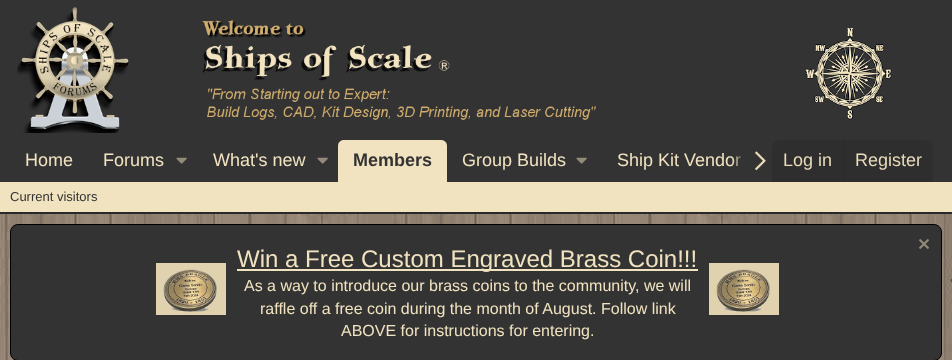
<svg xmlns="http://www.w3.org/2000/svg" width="952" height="360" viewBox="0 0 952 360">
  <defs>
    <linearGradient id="g1" gradientUnits="userSpaceOnUse" x1="732" y1="161" x2="772" y2="161"><stop offset="0" stop-color="#333333" stop-opacity="0"/><stop offset="0.33" stop-color="#333333"/></linearGradient>
  </defs>
  <rect width="100%" height="100%" fill="#ffffff"/>
  <image x="0" y="214" width="952" height="146" href="img1.png"/>
  <rect x="0" y="0" width="952" height="182" fill="#333333"/>
  <image x="17" y="7" width="883" height="126" href="img2.png"/>
  <text x="25" y="166" font-family="Liberation Sans" font-size="18" fill="#f1e3c0">Home</text>
  <text x="103" y="166" font-family="Liberation Sans" font-size="18" fill="#f1e3c0">Forums</text>
  <image x="176" y="157" width="11" height="7" href="img3.png"/>
  <text x="213" y="166" font-family="Liberation Sans" font-size="18" fill="#f1e3c0">What's new</text>
  <image x="317" y="157" width="11" height="7" href="img3.png"/>
  <path d="M344 140H441C444.5 140 447 142.5 447 146V182H338V146C338 142.5 340.5 140 344 140Z" fill="#f1e3c0"/>
  <text x="353" y="166" font-family="Liberation Sans" font-size="18" font-weight="bold" fill="#333333">Members</text>
  <text x="462" y="166" font-family="Liberation Sans" font-size="18" fill="#f1e3c0">Group Builds</text>
  <image x="576" y="157" width="11" height="7" href="img3.png"/>
  <text x="617" y="166" font-family="Liberation Sans" font-size="18" fill="#f1e3c0">Ship Kit Vendor</text>
  <rect x="732" y="156" width="9" height="10" fill="url(#g1)"/>
  <image x="755" y="151" width="11" height="20" href="img4.png"/>
  <path d="M780 140H925C929.5 140 933 143.5 933 148V182H772V148C772 143.5 775.5 140 780 140Z" fill="#2e2e2e"/>
  <text x="783" y="166" font-family="Liberation Sans" font-size="18" fill="#e9dab9">Log in</text>
  <rect x="843" y="140" width="1" height="42" fill="#2a2a2a"/>
  <text x="855" y="166" font-family="Liberation Sans" font-size="18" fill="#e9dab9">Register</text>
  <rect x="0" y="182" width="952" height="30" fill="#f1e3c0"/>
  <rect x="0" y="212" width="952" height="2" fill="#292929"/>
  <text x="10" y="201" font-family="Liberation Sans" font-size="13" fill="#333333">Current visitors</text>
  <rect x="10.5" y="224.5" width="931" height="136" rx="7.5" fill="#333333" stroke="#000000"/>
  <image x="919" y="239" width="10" height="10" href="img5.png"/>
  <image x="156" y="263" width="70" height="52" href="img6.png"/>
  <rect x="237" y="269" width="461" height="2" fill="#f1e3c0"/>
  <text x="237" y="267" font-family="Liberation Sans" font-size="24" fill="#f1e3c0">Win a Free Custom Engraved Brass Coin!!!</text>
  <text x="244" y="291" font-family="Liberation Sans" font-size="16" fill="#f1e3c0">As a way to introduce our brass coins to the community, we will</text>
  <text x="260" y="314" font-family="Liberation Sans" font-size="16" fill="#f1e3c0">raffle off a free coin during the month of August. Follow link</text>
  <text x="341" y="336" font-family="Liberation Sans" font-size="16" fill="#f1e3c0">ABOVE for instructions for entering.</text>
  <image x="709" y="263" width="70" height="52" href="img7.png"/>
</svg>
